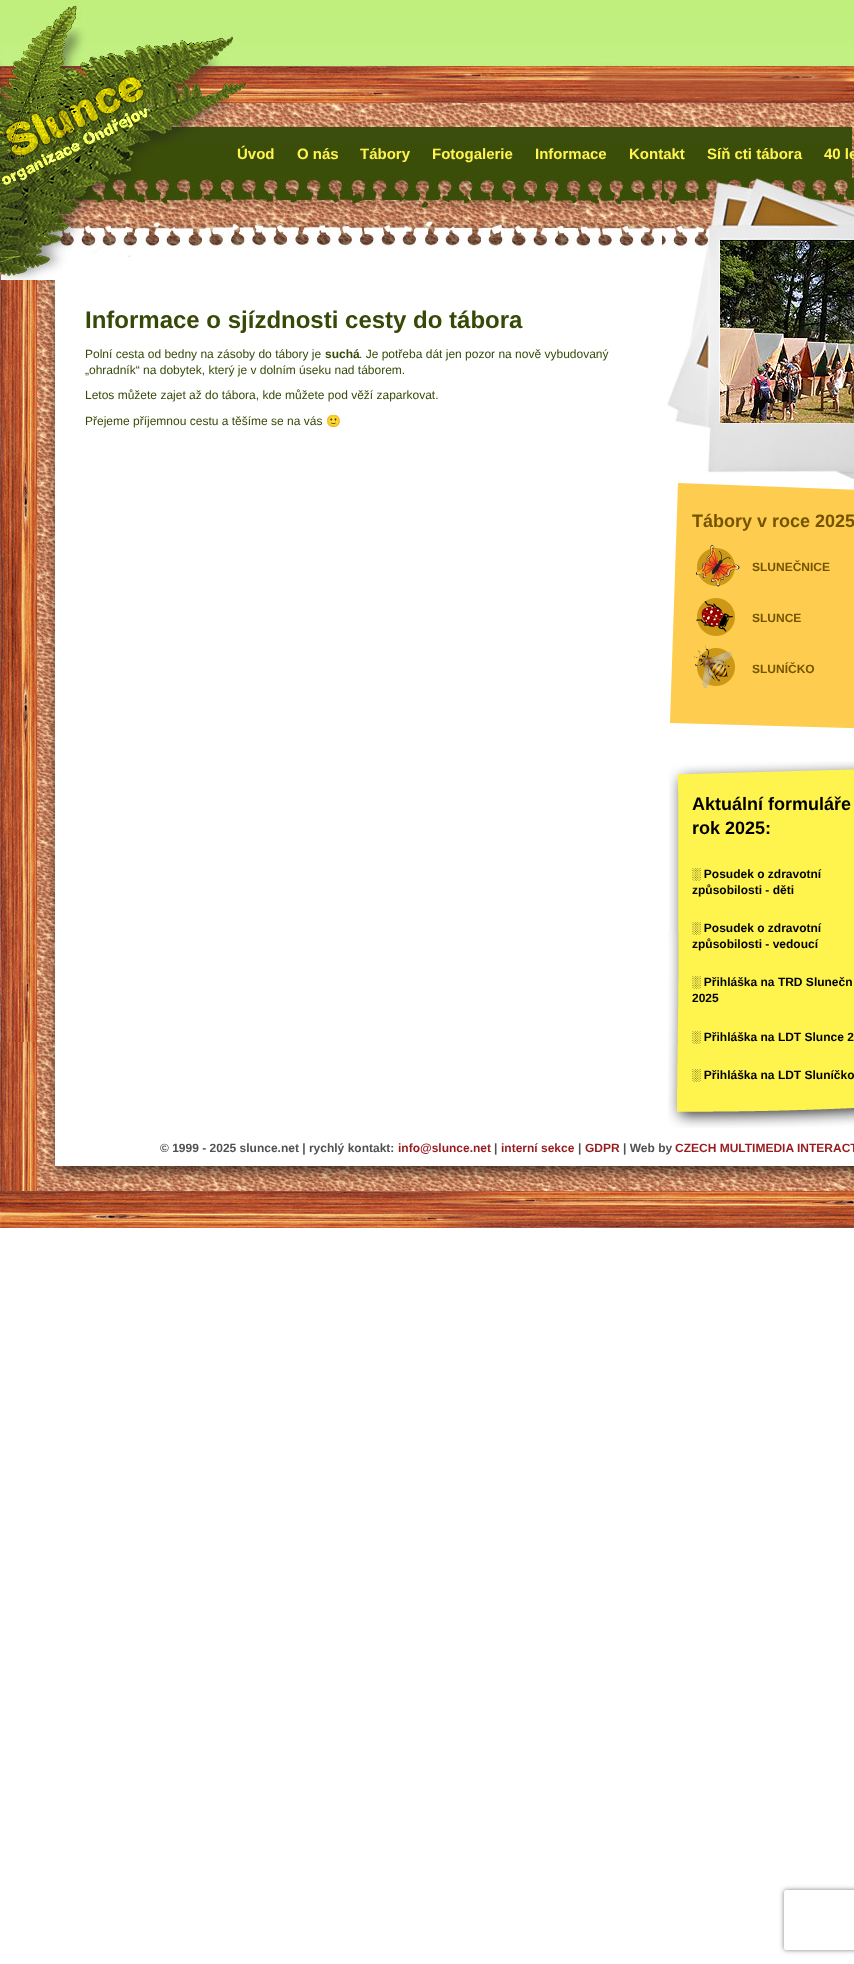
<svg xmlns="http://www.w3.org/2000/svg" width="854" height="1964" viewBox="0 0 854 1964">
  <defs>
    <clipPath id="clip1"><path d="M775 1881H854V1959H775ZM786 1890H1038C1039 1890 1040 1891 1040 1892V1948C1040 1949 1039 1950 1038 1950H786C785 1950 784 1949 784 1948V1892C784 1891 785 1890 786 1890Z" clip-rule="evenodd"/></clipPath>
    <filter id="blur1" x="-50%" y="-200%" width="200%" height="500%"><feGaussianBlur stdDeviation="2.5"/></filter>
  </defs>
  <rect width="100%" height="100%" fill="#ffffff"/>
  <image x="0" y="0" width="854" height="280" href="img1.png"/>
  <text x="237" y="159" font-family="Liberation Sans" font-size="15" font-weight="bold" fill="#fff44e">Úvod</text>
  <text x="297" y="159" font-family="Liberation Sans" font-size="15" font-weight="bold" fill="#fff44e">O nás</text>
  <text x="360" y="159" font-family="Liberation Sans" font-size="15" font-weight="bold" fill="#fff44e">Tábory</text>
  <text x="432" y="159" font-family="Liberation Sans" font-size="15" font-weight="bold" fill="#fff44e">Fotogalerie</text>
  <text x="535" y="159" font-family="Liberation Sans" font-size="15" font-weight="bold" fill="#fff44e">Informace</text>
  <text x="629" y="159" font-family="Liberation Sans" font-size="15" font-weight="bold" fill="#fff44e">Kontakt</text>
  <text x="707" y="159" font-family="Liberation Sans" font-size="15" font-weight="bold" fill="#fff44e">Síň cti tábora</text>
  <text x="824" y="159" font-family="Liberation Sans" font-size="15" font-weight="bold" fill="#fff44e">40 le</text>
  <image x="0" y="280" width="56" height="911" href="img2.png"/>
  <text x="85" y="328" font-family="Liberation Sans" font-size="24" font-weight="bold" fill="#364907">Informace o sjízdnosti cesty do tábora</text>
  <text x="85" y="358" font-family="Liberation Sans" font-size="12" fill="#364907">Polní cesta od bedny na zásoby do tábory je</text>
  <text x="325" y="358" font-family="Liberation Sans" font-size="12" font-weight="bold" fill="#364907">suchá</text>
  <text x="359" y="358" font-family="Liberation Sans" font-size="12" fill="#364907">. Je potřeba dát jen pozor na nově vybudovaný</text>
  <text x="85" y="374" font-family="Liberation Sans" font-size="12" fill="#364907">„ohradník“ na dobytek, který je v dolním úseku nad táborem.</text>
  <text x="85" y="399" font-family="Liberation Sans" font-size="12" fill="#364907">Letos můžete zajet až do tábora, kde můžete pod věží zaparkovat.</text>
  <text x="85" y="425" font-family="Liberation Sans" font-size="12" fill="#364907">Přejeme příjemnou cestu a těšíme se na vás</text>
  <text x="326" y="425" font-family="Noto Color Emoji" font-size="12" fill="#364907">🙂</text>
  <image x="662" y="178" width="192" height="301" href="img3.png"/>
  <image x="720" y="240" width="134" height="183" href="img4.png"/>
  <image x="670" y="483" width="184" height="246" href="img5.png"/>
  <text x="692" y="527" font-family="Liberation Sans" font-size="18" font-weight="bold" fill="#755400">Tábory v roce 2025</text>
  <text x="752" y="571" font-family="Liberation Sans" font-size="12" font-weight="bold" fill="#755400">SLUNEČNICE</text>
  <text x="752" y="622" font-family="Liberation Sans" font-size="12" font-weight="bold" fill="#755400">SLUNCE</text>
  <text x="752" y="673" font-family="Liberation Sans" font-size="12" font-weight="bold" fill="#755400">SLUNÍČKO</text>
  <image x="669" y="761" width="185" height="32" href="img6.png"/>
  <image x="669" y="793" width="185" height="314" href="img7.png"/>
  <image x="668" y="931" width="11" height="176" href="img8.png"/>
  <text x="692" y="810" font-family="Liberation Sans" font-size="18" font-weight="bold" fill="#000000">Aktuální formuláře</text>
  <text x="692" y="834" font-family="Liberation Sans" font-size="18" font-weight="bold" fill="#000000">rok 2025:</text>
  <text x="692" y="878" font-family="Liberation Sans" font-size="12" font-weight="bold" fill="#000000">░ Posudek o zdravotní</text>
  <text x="692" y="894" font-family="Liberation Sans" font-size="12" font-weight="bold" fill="#000000">způsobilosti - děti</text>
  <text x="692" y="932" font-family="Liberation Sans" font-size="12" font-weight="bold" fill="#000000">░ Posudek o zdravotní</text>
  <text x="692" y="948" font-family="Liberation Sans" font-size="12" font-weight="bold" fill="#000000">způsobilosti - vedoucí</text>
  <text x="692" y="986" font-family="Liberation Sans" font-size="12" font-weight="bold" fill="#000000">░ Přihláška na TRD Slunečn</text>
  <text x="692" y="1002" font-family="Liberation Sans" font-size="12" font-weight="bold" fill="#000000">2025</text>
  <text x="692" y="1041" font-family="Liberation Sans" font-size="12" font-weight="bold" fill="#000000">░ Přihláška na LDT Slunce 2</text>
  <text x="692" y="1079" font-family="Liberation Sans" font-size="12" font-weight="bold" fill="#000000">░ Přihláška na LDT Sluníčko</text>
  <image x="668" y="1107" width="186" height="21" href="img9.png"/>
  <image x="0" y="1191" width="854" height="37" href="img10.png"/>
  <image x="37" y="1166" width="817" height="25" href="img11.png"/>
  <text x="160" y="1152" font-family="Liberation Sans" font-size="12" font-weight="bold" fill="#515151">© 1999 - 2025 slunce.net | rychlý kontakt:</text>
  <text x="398" y="1152" font-family="Liberation Sans" font-size="12" font-weight="bold" fill="#981b1e">info@slunce.net</text>
  <text x="494" y="1152" font-family="Liberation Sans" font-size="12" font-weight="bold" fill="#515151">|</text>
  <text x="501" y="1152" font-family="Liberation Sans" font-size="12" font-weight="bold" fill="#981b1e">interní sekce</text>
  <text x="578" y="1152" font-family="Liberation Sans" font-size="12" font-weight="bold" fill="#515151">|</text>
  <text x="585" y="1152" font-family="Liberation Sans" font-size="12" font-weight="bold" fill="#981b1e">GDPR</text>
  <text x="623" y="1152" font-family="Liberation Sans" font-size="12" font-weight="bold" fill="#515151">| Web by</text>
  <text x="675" y="1152" font-family="Liberation Sans" font-size="12" font-weight="bold" fill="#981b1e">CZECH MULTIMEDIA INTERACT</text>
  <g clip-path="url(#clip1)">
    <rect x="784" y="1890" width="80" height="60" rx="2" fill="#808080" filter="url(#blur1)"/>
  </g>
</svg>
